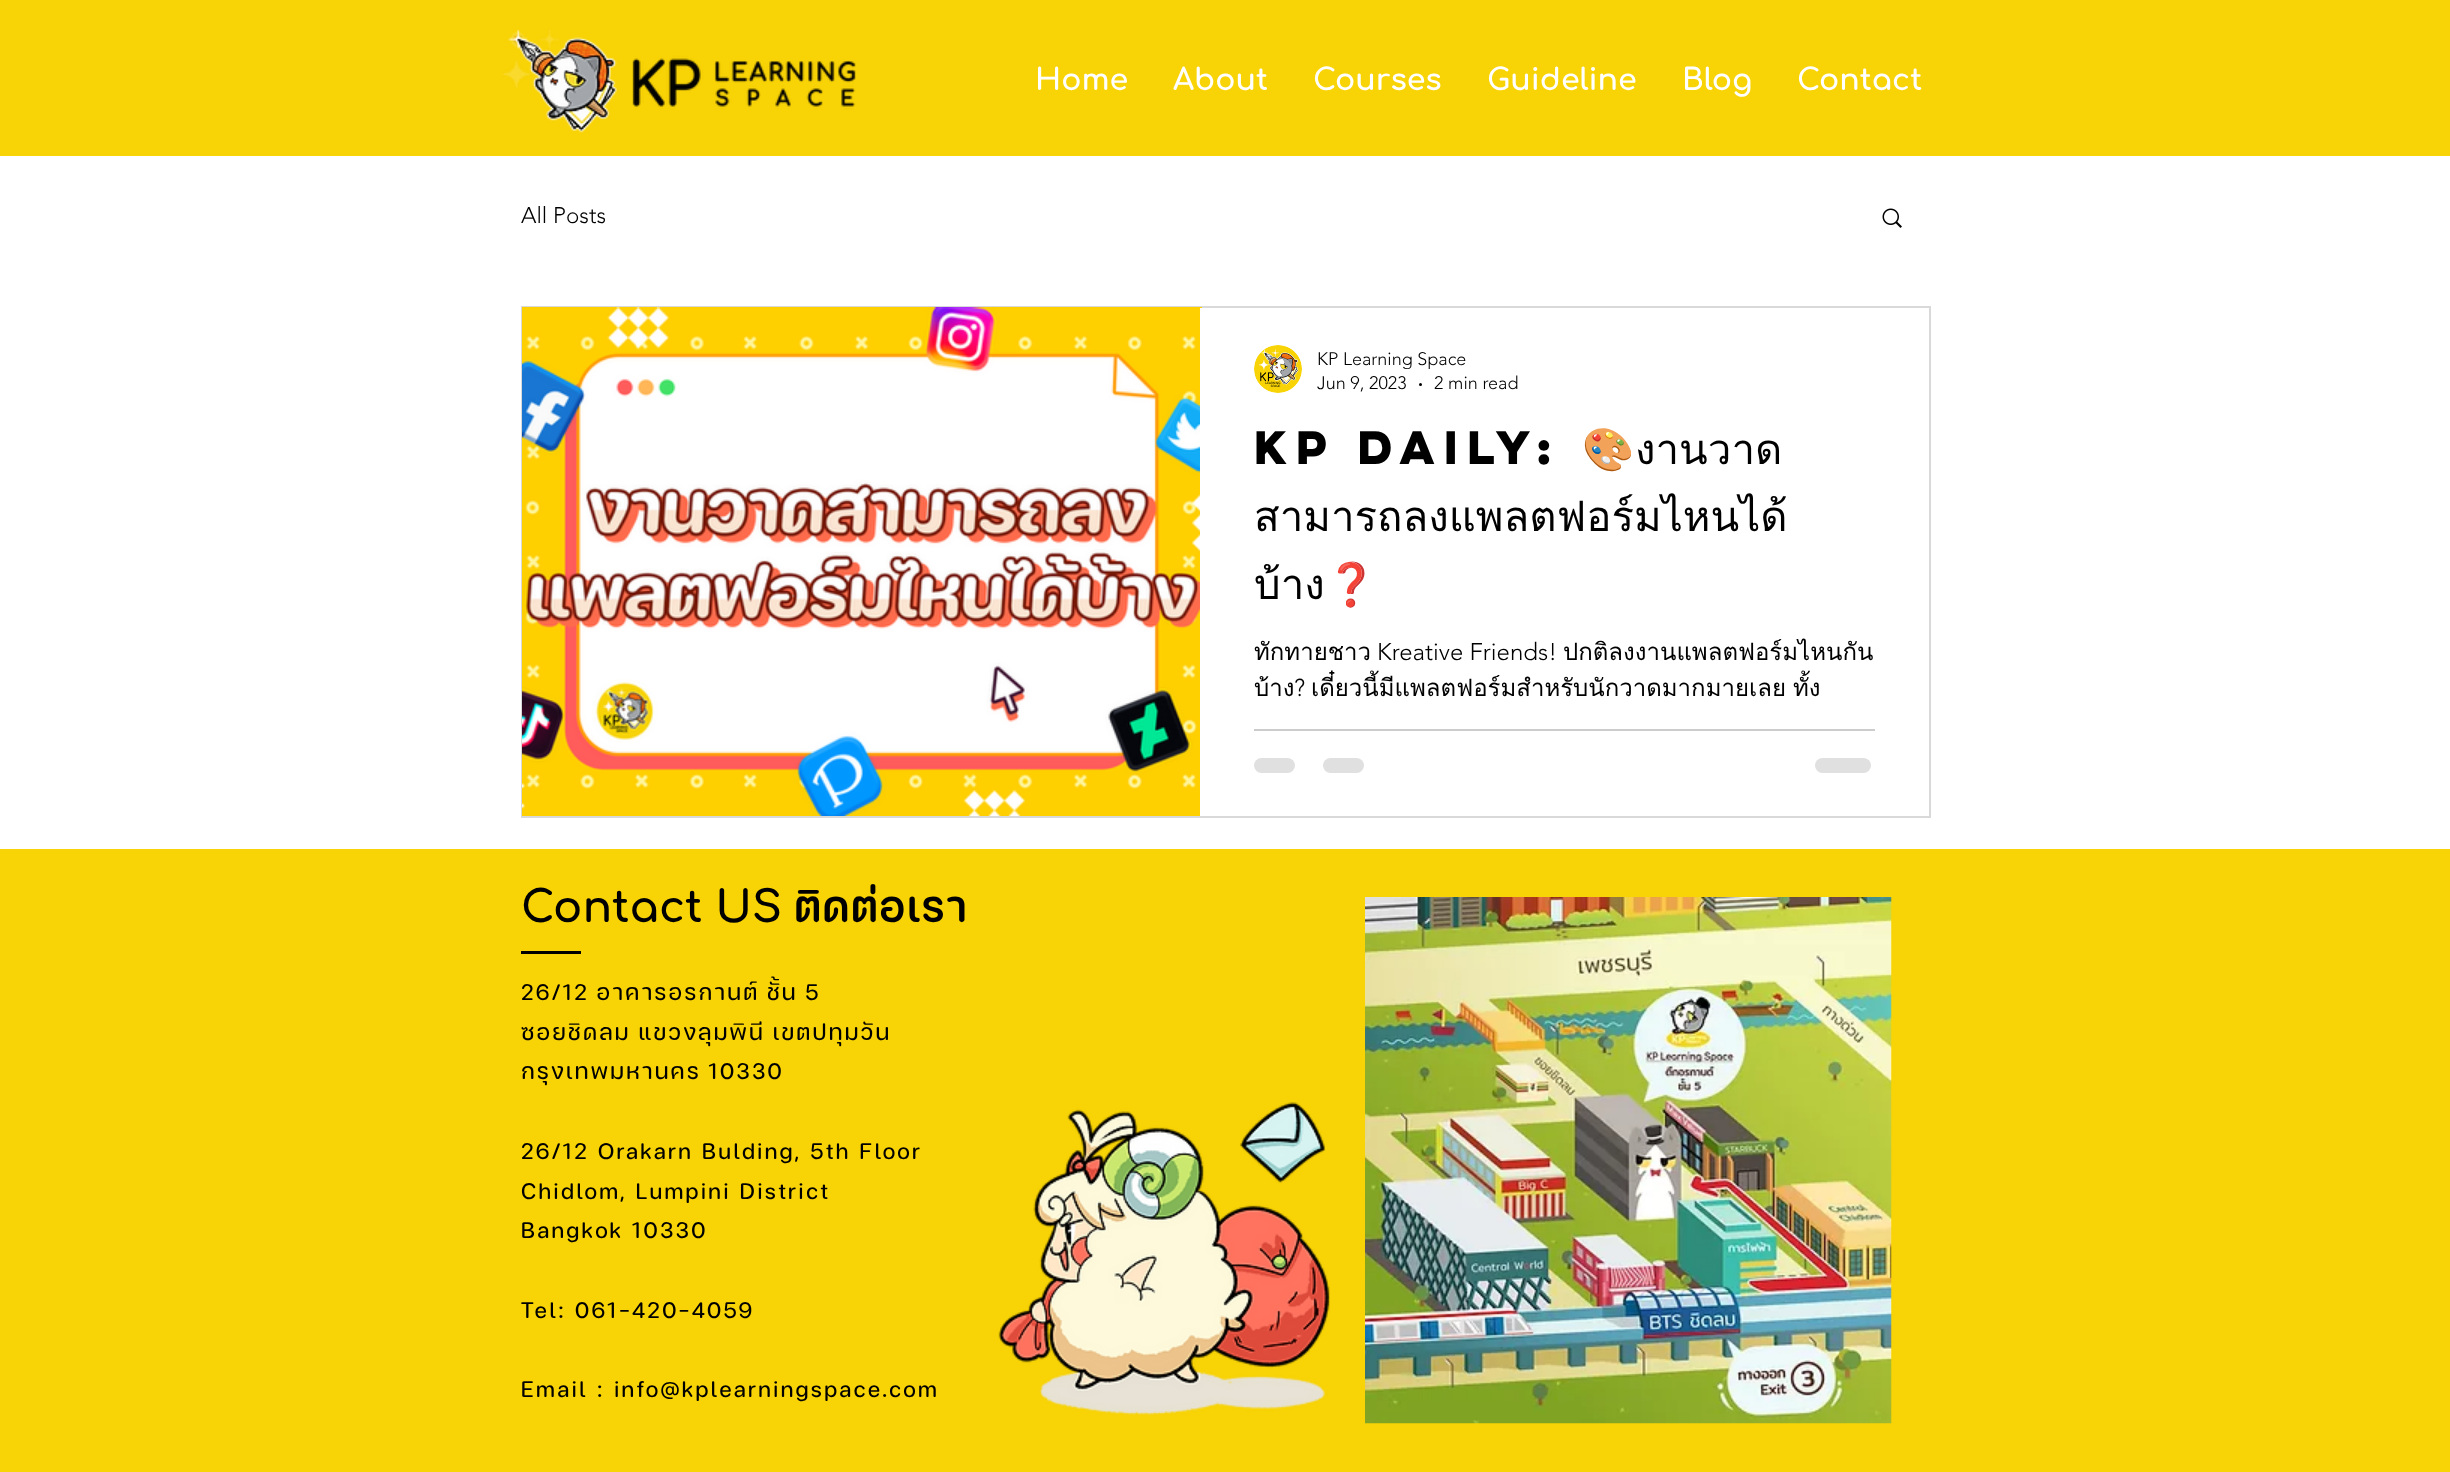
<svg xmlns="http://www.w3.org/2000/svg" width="2450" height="1472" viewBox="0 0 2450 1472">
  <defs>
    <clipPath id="clip1"><rect x="1317" y="348" width="150" height="21"/></clipPath>
    <clipPath id="clip2"><rect x="1254" y="414" width="621" height="203"/></clipPath>
    <clipPath id="clip3"><rect x="1254" y="635" width="621" height="76"/></clipPath>
  </defs>
  <rect width="100%" height="100%" fill="#ffffff"/>
  <rect x="0" y="0" width="2450" height="156" fill="#f8d305"/>
  <image x="502" y="29" width="354" height="104" href="img1.png"/>
  <text x="1035" y="90" font-family="Comfortaa" font-size="30" font-weight="bold" fill="#ffffff">Home</text>
  <text x="1173" y="90" font-family="Comfortaa" font-size="30" font-weight="bold" fill="#ffffff">About</text>
  <text x="1313" y="90" font-family="Comfortaa" font-size="30" font-weight="bold" fill="#ffffff">Courses</text>
  <text x="1487" y="90" font-family="Comfortaa" font-size="30" font-weight="bold" fill="#ffffff">Guideline</text>
  <text x="1682" y="90" font-family="Comfortaa" font-size="30" font-weight="bold" fill="#ffffff">Blog</text>
  <text x="1797" y="90" font-family="Comfortaa" font-size="30" font-weight="bold" fill="#ffffff">Contact</text>
  <text x="521" y="223" font-family="'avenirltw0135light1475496'" font-size="22.5" font-weight="300" fill="#000000">All Posts</text>
  <image x="1882" y="208" width="20" height="20" href="img2.png"/>
  <rect x="522" y="307" width="1408" height="510" fill="none" stroke="#d9d9d9" stroke-width="2"/>
  <image x="522" y="307" width="680" height="509" href="img3.png"/>
  <rect x="1200" y="308" width="2" height="508" fill="#ffffff"/>
  <image x="1254" y="345" width="48" height="48" href="img4.png"/>
  <g clip-path="url(#clip1)">
    <text x="1317" y="365" font-family="'avenirltw0135light1475496'" font-size="18" font-weight="300" fill="#000000">KP Learning Space</text>
  </g>
  <text x="1317" y="389" font-family="'avenirltw0135light1475496'" font-size="18" font-weight="300" fill="#000000">Jun 9, 2023</text>
  <circle cx="1420.5" cy="384.5" r="1.5" fill="#000000"/>
  <text x="1434" y="389" font-family="'avenirltw0135light1475496'" font-size="18" font-weight="300" fill="#000000">2 min read</text>
  <text x="1254" y="464" font-family="'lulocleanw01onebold'" font-size="42" font-weight="bold" fill="#000000">KP Daily:</text>
  <text x="1582" y="464" font-family="Noto Color Emoji" font-size="42" fill="#000000">🎨</text>
  <text x="1635" y="464" font-family="Loma" font-size="42" fill="#000000">งานวาด</text>
  <text x="1254" y="531" font-family="Loma" font-size="42" fill="#000000">สามารถลงแพลตฟอร์มไหนได้</text>
  <g clip-path="url(#clip2)">
    <text x="1254" y="599" font-family="Loma" font-size="42" fill="#000000">บ้าง</text>
  </g>
  <text x="1325" y="599" font-family="Noto Color Emoji" font-size="42" fill="#000000">❓</text>
  <g clip-path="url(#clip3)">
    <text x="1254" y="660" font-family="Loma" font-size="24" fill="#000000">ทักทายชาว</text>
  </g>
  <text x="1377" y="660" font-family="'avenirltw0135light1475496'" font-size="24" font-weight="300" fill="#000000">Kreative Friends!</text>
  <text x="1563" y="660" font-family="Loma" font-size="24" fill="#000000">ปกติลงงานแพลตฟอร์มไหนกัน</text>
  <g clip-path="url(#clip3)">
    <text x="1254" y="696" font-family="Loma" font-size="24" fill="#000000">บ้าง</text>
  </g>
  <text x="1294" y="696" font-family="'avenirltw0135light1475496'" font-size="24" font-weight="300" fill="#000000">?</text>
  <text x="1311" y="696" word-spacing="-1" font-family="Loma" font-size="24" fill="#000000">เดี๋ยวนี้มีแพลตฟอร์มสำหรับนักวาดมากมายเลย ทั้ง</text>
  <rect x="1254" y="729" width="621" height="2" fill="#cccccc"/>
  <rect x="1254" y="758" width="41" height="15" rx="7.5" fill="#e0e0e0"/>
  <rect x="1323" y="758" width="41" height="15" rx="7.5" fill="#e0e0e0"/>
  <rect x="1815" y="758" width="56" height="15" rx="7.5" fill="#e0e0e0"/>
  <rect x="0" y="849" width="2450" height="623" fill="#f8d305"/>
  <text x="521" y="922" font-family="Comfortaa" font-size="43.5" font-weight="bold" fill="#000000">Contact US</text>
  <text x="794" y="922" font-family="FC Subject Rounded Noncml" font-size="42" font-weight="bold" letter-spacing="2.25" fill="#000000">ติดต่อเรา</text>
  <image x="1365" y="897" width="527" height="527" href="img5.png"/>
  <rect x="521" y="951" width="60" height="3" fill="#000000"/>
  <text x="521" y="1000" word-spacing="-1.5" font-family="FC Subject Rounded Noncml" font-size="22.5" letter-spacing="2.25" fill="#000000">26/12 อาคารอรกานต์ ชั้น 5</text>
  <text x="521" y="1040" word-spacing="-1.5" font-family="FC Subject Rounded Noncml" font-size="22.5" letter-spacing="2.25" fill="#000000">ซอยชิดลม แขวงลุมพินี เขตปทุมวัน</text>
  <text x="521" y="1079" word-spacing="-1.5" font-family="FC Subject Rounded Noncml" font-size="22.5" letter-spacing="2.25" fill="#000000">กรุงเทพมหานคร 10330</text>
  <text x="521" y="1159" font-family="FC Subject Rounded Noncml" font-size="22.5" letter-spacing="2.25" fill="#000000">26/12 Orakarn Bulding, 5th Floor</text>
  <text x="521" y="1199" font-family="FC Subject Rounded Noncml" font-size="22.5" letter-spacing="2.25" fill="#000000">Chidlom, Lumpini District</text>
  <text x="521" y="1238" font-family="FC Subject Rounded Noncml" font-size="22.5" letter-spacing="2.25" fill="#000000">Bangkok 10330</text>
  <text x="521" y="1318" font-family="FC Subject Rounded Noncml" font-size="22.5" letter-spacing="2.25" fill="#000000">Tel: 061-420-4059</text>
  <text x="521" y="1397" font-family="FC Subject Rounded Noncml" font-size="22.5" letter-spacing="2.25" fill="#000000">Email : info@kplearningspace.com</text>
  <image x="998" y="1102" width="332" height="313" href="img6.png"/>
</svg>
